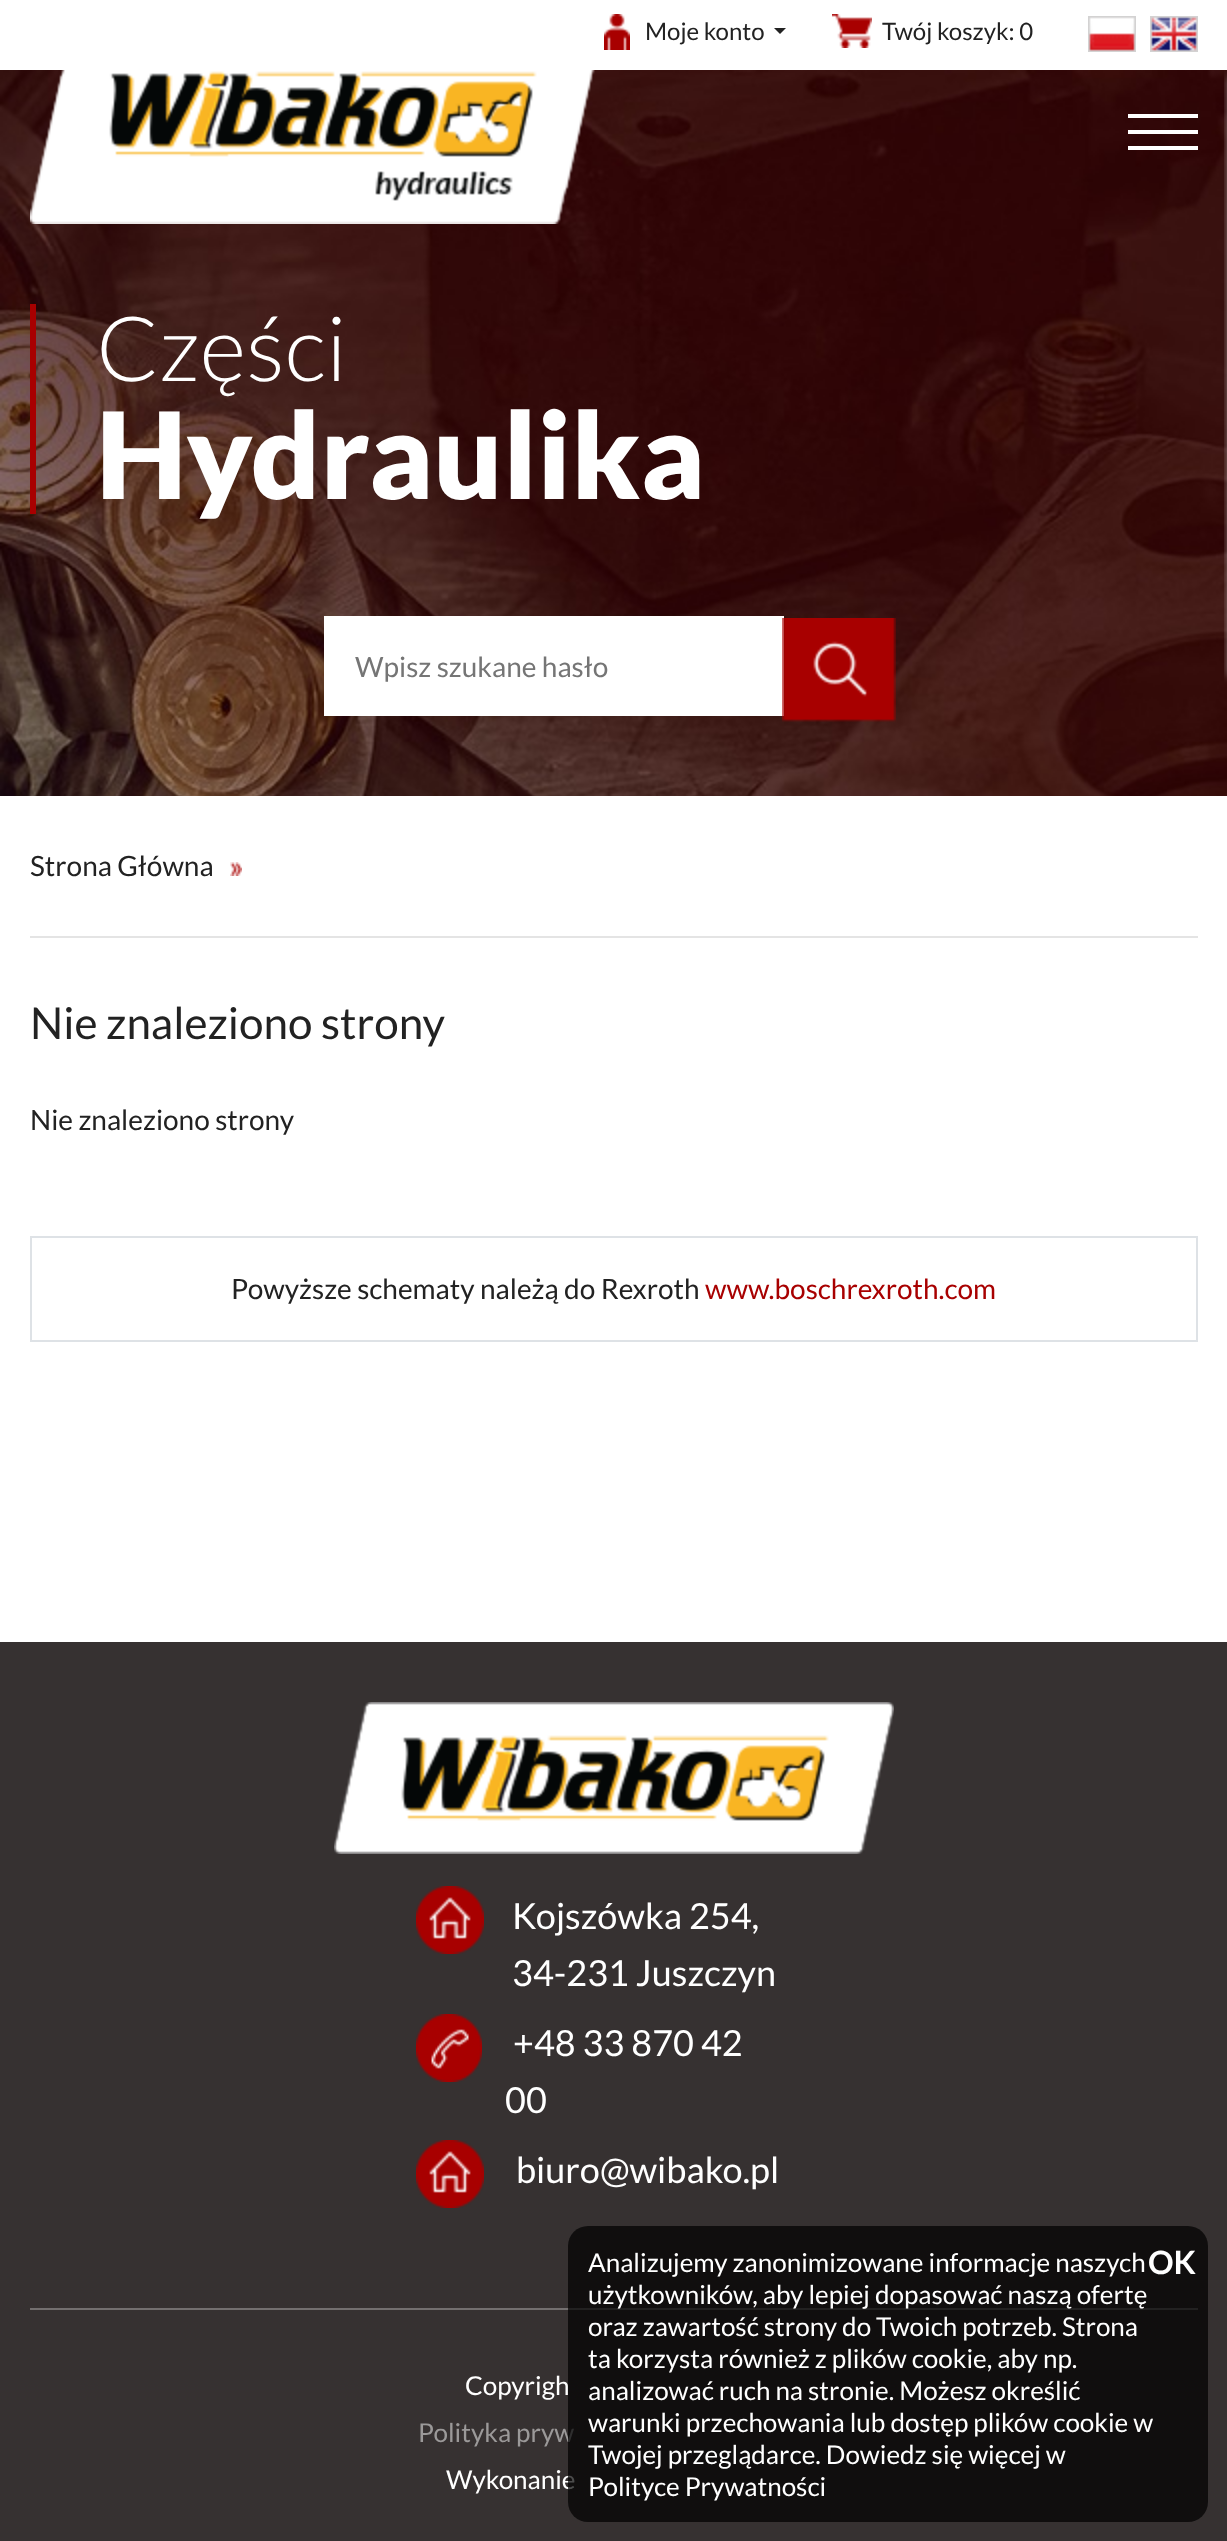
<svg xmlns="http://www.w3.org/2000/svg" width="1227" height="2541" viewBox="0 0 1227 2541">
  <defs>
    <filter id="blur1" x="-50%" y="-200%" width="200%" height="500%"><feGaussianBlur stdDeviation="5"/></filter>
  </defs>
  <rect width="100%" height="100%" fill="#ffffff"/>
  <image x="0" y="70" width="1227" height="726" href="img1.png"/>
  <image x="604" y="14" width="26" height="36" href="img2.png"/>
  <text x="645" y="40" font-family="Lato" font-size="24" fill="#222222">Moje konto</text>
  <path d="M774 28H786L780 34Z" fill="#222222"/>
  <image x="832" y="14" width="40" height="34" href="img3.png"/>
  <text x="882" y="40" font-family="Lato" font-size="24" fill="#222222">Twój koszyk: 0</text>
  <image x="1088" y="16" width="48" height="36" href="img4.png"/>
  <image x="1150" y="16" width="48" height="36" href="img5.png"/>
  <rect x="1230" y="76" width="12" height="600" fill="#cccccc" filter="url(#blur1)"/>
  <image x="30" y="70" width="565" height="154" href="img6.png"/>
  <rect x="1128" y="114" width="70" height="4" fill="#ffffff"/>
  <rect x="1128" y="130" width="70" height="4" fill="#ffffff"/>
  <rect x="1128" y="146" width="70" height="4" fill="#ffffff"/>
  <rect x="30" y="304" width="6" height="210" fill="#a80000"/>
  <text x="96" y="381" font-family="Lato" font-size="90" font-weight="300" fill="#ffffff">Części</text>
  <text x="96" y="499" font-family="Lato" font-size="120" font-weight="900" fill="#ffffff">Hydraulika</text>
  <rect x="324" y="616" width="460" height="100" fill="#ffffff"/>
  <text x="355" y="677" font-family="Lato" font-size="28" fill="#757575">Wpisz szukane hasło</text>
  <image x="782" y="618" width="114" height="104" href="img7.png"/>
  <rect x="30" y="936" width="1168" height="2" fill="#e4e4e4"/>
  <text x="30" y="876" font-family="Lato" font-size="28" fill="#222222">Strona Główna</text>
  <image x="230" y="862" width="12" height="14" href="img8.png"/>
  <text x="30" y="1039" font-family="Lato" font-size="44" fill="#222222">Nie znaleziono strony</text>
  <text x="30" y="1130" font-family="Lato" font-size="28" fill="#222222">Nie znaleziono strony</text>
  <rect x="31" y="1237" width="1166" height="104" fill="none" stroke="#dee2e6" stroke-width="2"/>
  <text x="231" y="1299" font-family="Lato" font-size="28" fill="#222222">Powyższe schematy należą do Rexroth</text>
  <text x="705" y="1299" font-family="Lato" font-size="28" fill="#a80000">www.boschrexroth.com</text>
  <rect x="0" y="1642" width="1227" height="899" fill="#363131"/>
  <image x="334" y="1702" width="560" height="152" href="img9.png"/>
  <image x="416" y="1886" width="68" height="68" href="img10.png"/>
  <text x="512" y="1929" font-family="Lato" font-size="36" fill="#ffffff">Kojszówka 254,</text>
  <text x="512" y="1986" font-family="Lato" font-size="36" fill="#ffffff">34-231 Juszczyn</text>
  <image x="416" y="2014" width="66" height="68" href="img11.png"/>
  <text x="513" y="2056" font-family="Lato" font-size="36" fill="#ffffff">+48 33 870 42</text>
  <text x="505" y="2113" font-family="Lato" font-size="36" fill="#ffffff">00</text>
  <image x="416" y="2140" width="68" height="68" href="img10.png"/>
  <text x="516" y="2183" font-family="Lato" font-size="36" fill="#ffffff">biuro@wibako.pl</text>
  <rect x="30" y="2308" width="1168" height="2" fill="#736f6f"/>
  <text x="465" y="2395" font-family="Lato" font-size="26" fill="#ffffff">Copyrigh</text>
  <text x="418" y="2442" font-family="Lato" font-size="26" fill="#9b9999">Polityka pryw</text>
  <text x="446" y="2489" font-family="Lato" font-size="26" fill="#ffffff">Wykonanie</text>
  <rect x="568" y="2226" width="640" height="296" rx="20" fill="#000000" fill-opacity="0.7"/>
  <text x="588" y="2272" font-family="Lato" font-size="26" fill="#ffffff">Analizujemy zanonimizowane informacje naszych</text>
  <text x="1148" y="2274" font-family="Lato" font-size="32" font-weight="bold" fill="#ffffff">OK</text>
  <text x="588" y="2304" font-family="Lato" font-size="26" fill="#ffffff">użytkowników, aby lepiej dopasować naszą ofertę</text>
  <text x="588" y="2336" font-family="Lato" font-size="26" fill="#ffffff">oraz zawartość strony do Twoich potrzeb. Strona</text>
  <text x="588" y="2368" font-family="Lato" font-size="26" fill="#ffffff">ta korzysta również z plików cookie, aby np.</text>
  <text x="588" y="2400" font-family="Lato" font-size="26" fill="#ffffff">analizować ruch na stronie. Możesz określić</text>
  <text x="588" y="2432" font-family="Lato" font-size="26" fill="#ffffff">warunki przechowania lub dostęp plików cookie w</text>
  <text x="588" y="2464" font-family="Lato" font-size="26" fill="#ffffff">Twojej przeglądarce. Dowiedz się więcej w</text>
  <text x="588" y="2496" font-family="Lato" font-size="26" fill="#ffffff">Polityce Prywatności</text>
</svg>
